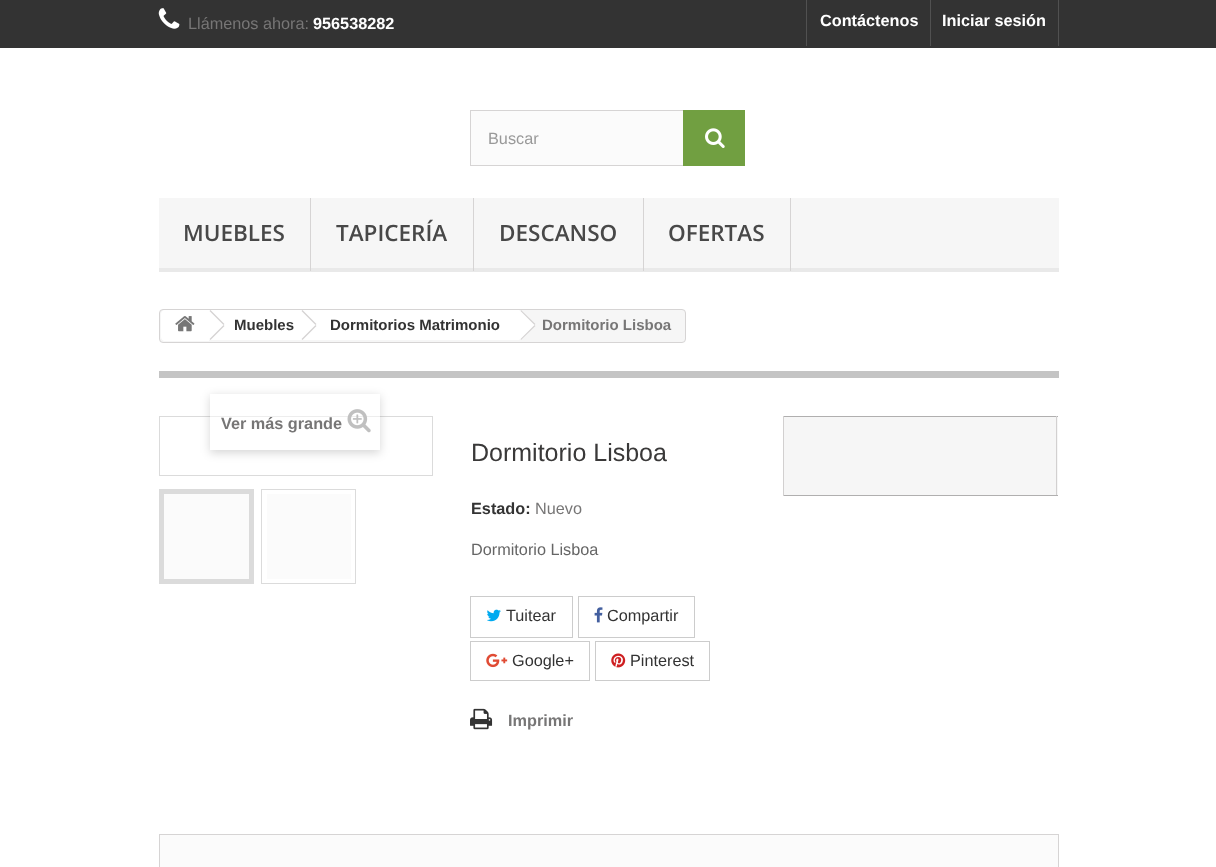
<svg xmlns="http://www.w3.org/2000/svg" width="1216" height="867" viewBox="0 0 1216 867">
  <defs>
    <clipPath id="clip1"><path d="M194 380H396V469H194ZM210 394H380V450H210Z" clip-rule="evenodd"/></clipPath>
    <filter id="blur1" x="-50%" y="-200%" width="200%" height="500%"><feGaussianBlur stdDeviation="5"/></filter>
  </defs>
  <rect width="100%" height="100%" fill="#ffffff"/>
  <rect x="0" y="0" width="1216" height="48" fill="#333333"/>
  <image x="158" y="8" width="22" height="21" href="img1.png"/>
  <text x="188" y="29" font-family="Liberation Sans" font-size="16.25" fill="#777676">Llámenos ahora:</text>
  <text x="313" y="29" font-family="Liberation Sans" font-size="16.25" font-weight="bold" fill="#ffffff">956538282</text>
  <rect x="806" y="0" width="1" height="46" fill="#515151"/>
  <text x="820" y="26" font-family="Liberation Sans" font-size="16.25" font-weight="bold" fill="#ffffff">Contáctenos</text>
  <rect x="1058" y="0" width="1" height="46" fill="#515151"/>
  <rect x="930" y="0" width="1" height="46" fill="#515151"/>
  <text x="942" y="26" font-family="Liberation Sans" font-size="16.25" font-weight="bold" fill="#ffffff">Iniciar sesión</text>
  <rect x="471" y="111" width="212" height="54" fill="#fbfbfb"/>
  <rect x="470.5" y="110.5" width="274" height="55" fill="none" stroke="#d6d4d4"/>
  <text x="488" y="144" font-family="Liberation Sans" font-size="16.25" fill="#999999">Buscar</text>
  <rect x="683" y="110" width="62" height="56" fill="#719f41"/>
  <image x="705" y="128" width="20" height="20" href="img2.png"/>
  <rect x="159" y="198" width="900" height="70" fill="#f6f6f6"/>
  <rect x="159" y="268" width="900" height="4" fill="#e9e9e9"/>
  <rect x="310" y="198" width="1" height="73" fill="#d6d4d4"/>
  <text x="183" y="241" font-family="Open Sans" font-size="22.5" font-weight="600" fill="#484848">MUEBLES</text>
  <rect x="473" y="198" width="1" height="73" fill="#d6d4d4"/>
  <text x="336" y="241" font-family="Open Sans" font-size="22.5" font-weight="600" fill="#484848">TAPICERÍA</text>
  <rect x="643" y="198" width="1" height="73" fill="#d6d4d4"/>
  <text x="499" y="241" font-family="Open Sans" font-size="22.5" font-weight="600" fill="#484848">DESCANSO</text>
  <rect x="790" y="198" width="1" height="73" fill="#d6d4d4"/>
  <text x="668" y="241" font-family="Open Sans" font-size="22.5" font-weight="600" fill="#484848">OFERTAS</text>
  <rect x="159.5" y="309.5" width="526" height="33" rx="3.5" fill="#f6f6f6" stroke="#d6d4d4"/>
  <path d="M165 310H209V341H165C163 341 161 339 161 337V314C161 312 163 310 165 310Z" fill="#ffffff"/>
  <image x="175" y="316" width="20" height="16" href="img3.png"/>
  <rect x="209" y="310" width="94" height="30" fill="#ffffff"/>
  <path d="M210.5 310L224.5 324L223.5 325L209.5 311ZM223.5 325L224.5 326L210.5 340L209.5 339Z" fill="#d6d4d4"/>
  <text x="234" y="330" font-family="Liberation Sans" font-size="15" font-weight="bold" fill="#333333">Muebles</text>
  <path d="M316 311L328 323C329 324 329 326 328 327L316 339C315 340 313 340 312 339L300 327C299 326 299 324 300 323L312 311C313 310 315 310 316 311Z" fill="#ffffff"/>
  <rect x="303" y="310" width="216" height="30" fill="#ffffff"/>
  <path d="M302.5 310L316.5 324L315.5 325L301.5 311ZM315.5 325L316.5 326L302.5 340L301.5 339Z" fill="#d6d4d4"/>
  <text x="330" y="330" font-family="Liberation Sans" font-size="15" font-weight="bold" fill="#333333">Dormitorios Matrimonio</text>
  <path d="M522 311L534.5 323C535.5 324 535.5 326 534.5 327L522 339C521 340 519.5 340 518.5 339L506 327C505 326 505 324 506 323L518.5 311C519.5 310 521 310 522 311Z" fill="#ffffff"/>
  <path d="M521 310L535.5 324L534.5 325L520.5 311ZM534.5 325L535.5 326L521 340L520.5 339Z" fill="#d6d4d4"/>
  <text x="542" y="330" font-family="Liberation Sans" font-size="15" font-weight="bold" fill="#777676">Dormitorio Lisboa</text>
  <rect x="159" y="371" width="900" height="7" fill="#c4c4c4"/>
  <rect x="159.5" y="416.5" width="273" height="59" fill="none" stroke="#dbdbdb"/>
  <g clip-path="url(#clip1)">
    <rect x="210" y="396" width="170" height="57" fill="#000000" fill-opacity="0.16" filter="url(#blur1)"/>
  </g>
  <rect x="210" y="416" width="170" height="1" fill="#ffffff" fill-opacity="0.5"/>
  <text x="221" y="429" font-family="Liberation Sans" font-size="16.25" font-weight="bold" fill="#777676">Ver más grande</text>
  <image x="347" y="409" width="24" height="24" href="img4.png"/>
  <rect x="159.5" y="489.5" width="94" height="94" fill="none" stroke="#dbdbdb"/>
  <rect x="162" y="492" width="89" height="89" fill="#fbfbfb" stroke="#dbdbdb" stroke-width="4"/>
  <rect x="261.5" y="489.5" width="94" height="94" fill="none" stroke="#dbdbdb"/>
  <rect x="267" y="494" width="84" height="85" fill="#fbfbfb"/>
  <rect x="784" y="417" width="274" height="78" fill="#f6f6f6"/>
  <rect x="783" y="416" width="275" height="1" fill="#b0afaf"/>
  <rect x="1056" y="416" width="1" height="80" fill="#d2d0d0"/>
  <rect x="783" y="495" width="275" height="1" fill="#b0afaf"/>
  <rect x="783" y="416" width="1" height="80" fill="#d2d0d0"/>
  <text x="471" y="461" font-family="Liberation Sans" font-size="25" fill="#3a3939">Dormitorio Lisboa</text>
  <text x="471" y="514" font-family="Liberation Sans" font-size="16.25" font-weight="bold" fill="#333333">Estado:</text>
  <text x="535" y="514" font-family="Liberation Sans" font-size="16.25" fill="#777676">Nuevo</text>
  <text x="471" y="555" font-family="Liberation Sans" font-size="16.25" fill="#666666">Dormitorio Lisboa</text>
  <rect x="470.5" y="596.5" width="102" height="41" fill="none" stroke="#cccccc"/>
  <image x="487" y="609" width="14" height="13" href="img5.png"/>
  <text x="506" y="621" font-family="Liberation Sans" font-size="16.25" fill="#333333">Tuitear</text>
  <rect x="578.5" y="596.5" width="116" height="41" fill="none" stroke="#cccccc"/>
  <image x="594" y="607" width="9" height="16" href="img6.png"/>
  <text x="607" y="621" font-family="Liberation Sans" font-size="16.25" fill="#333333">Compartir</text>
  <rect x="470.5" y="641.5" width="119" height="39" fill="none" stroke="#cccccc"/>
  <image x="486" y="653" width="22" height="15" href="img7.png"/>
  <text x="512" y="666" font-family="Liberation Sans" font-size="16.25" fill="#333333">Google+</text>
  <rect x="595.5" y="641.5" width="114" height="39" fill="none" stroke="#cccccc"/>
  <image x="611" y="653" width="15" height="15" href="img8.png"/>
  <text x="630" y="666" font-family="Liberation Sans" font-size="16.25" fill="#333333">Pinterest</text>
  <image x="470" y="708" width="23" height="22" href="img9.png"/>
  <text x="508" y="726" font-family="Liberation Sans" font-size="16.25" font-weight="bold" fill="#777676">Imprimir</text>
  <rect x="160" y="835" width="898" height="32" fill="#fbfbfb"/>
  <rect x="159" y="834" width="900" height="1" fill="#d6d4d4"/>
  <rect x="1058" y="834" width="1" height="33" fill="#d6d4d4"/>
  <rect x="159" y="834" width="1" height="33" fill="#d6d4d4"/>
</svg>
